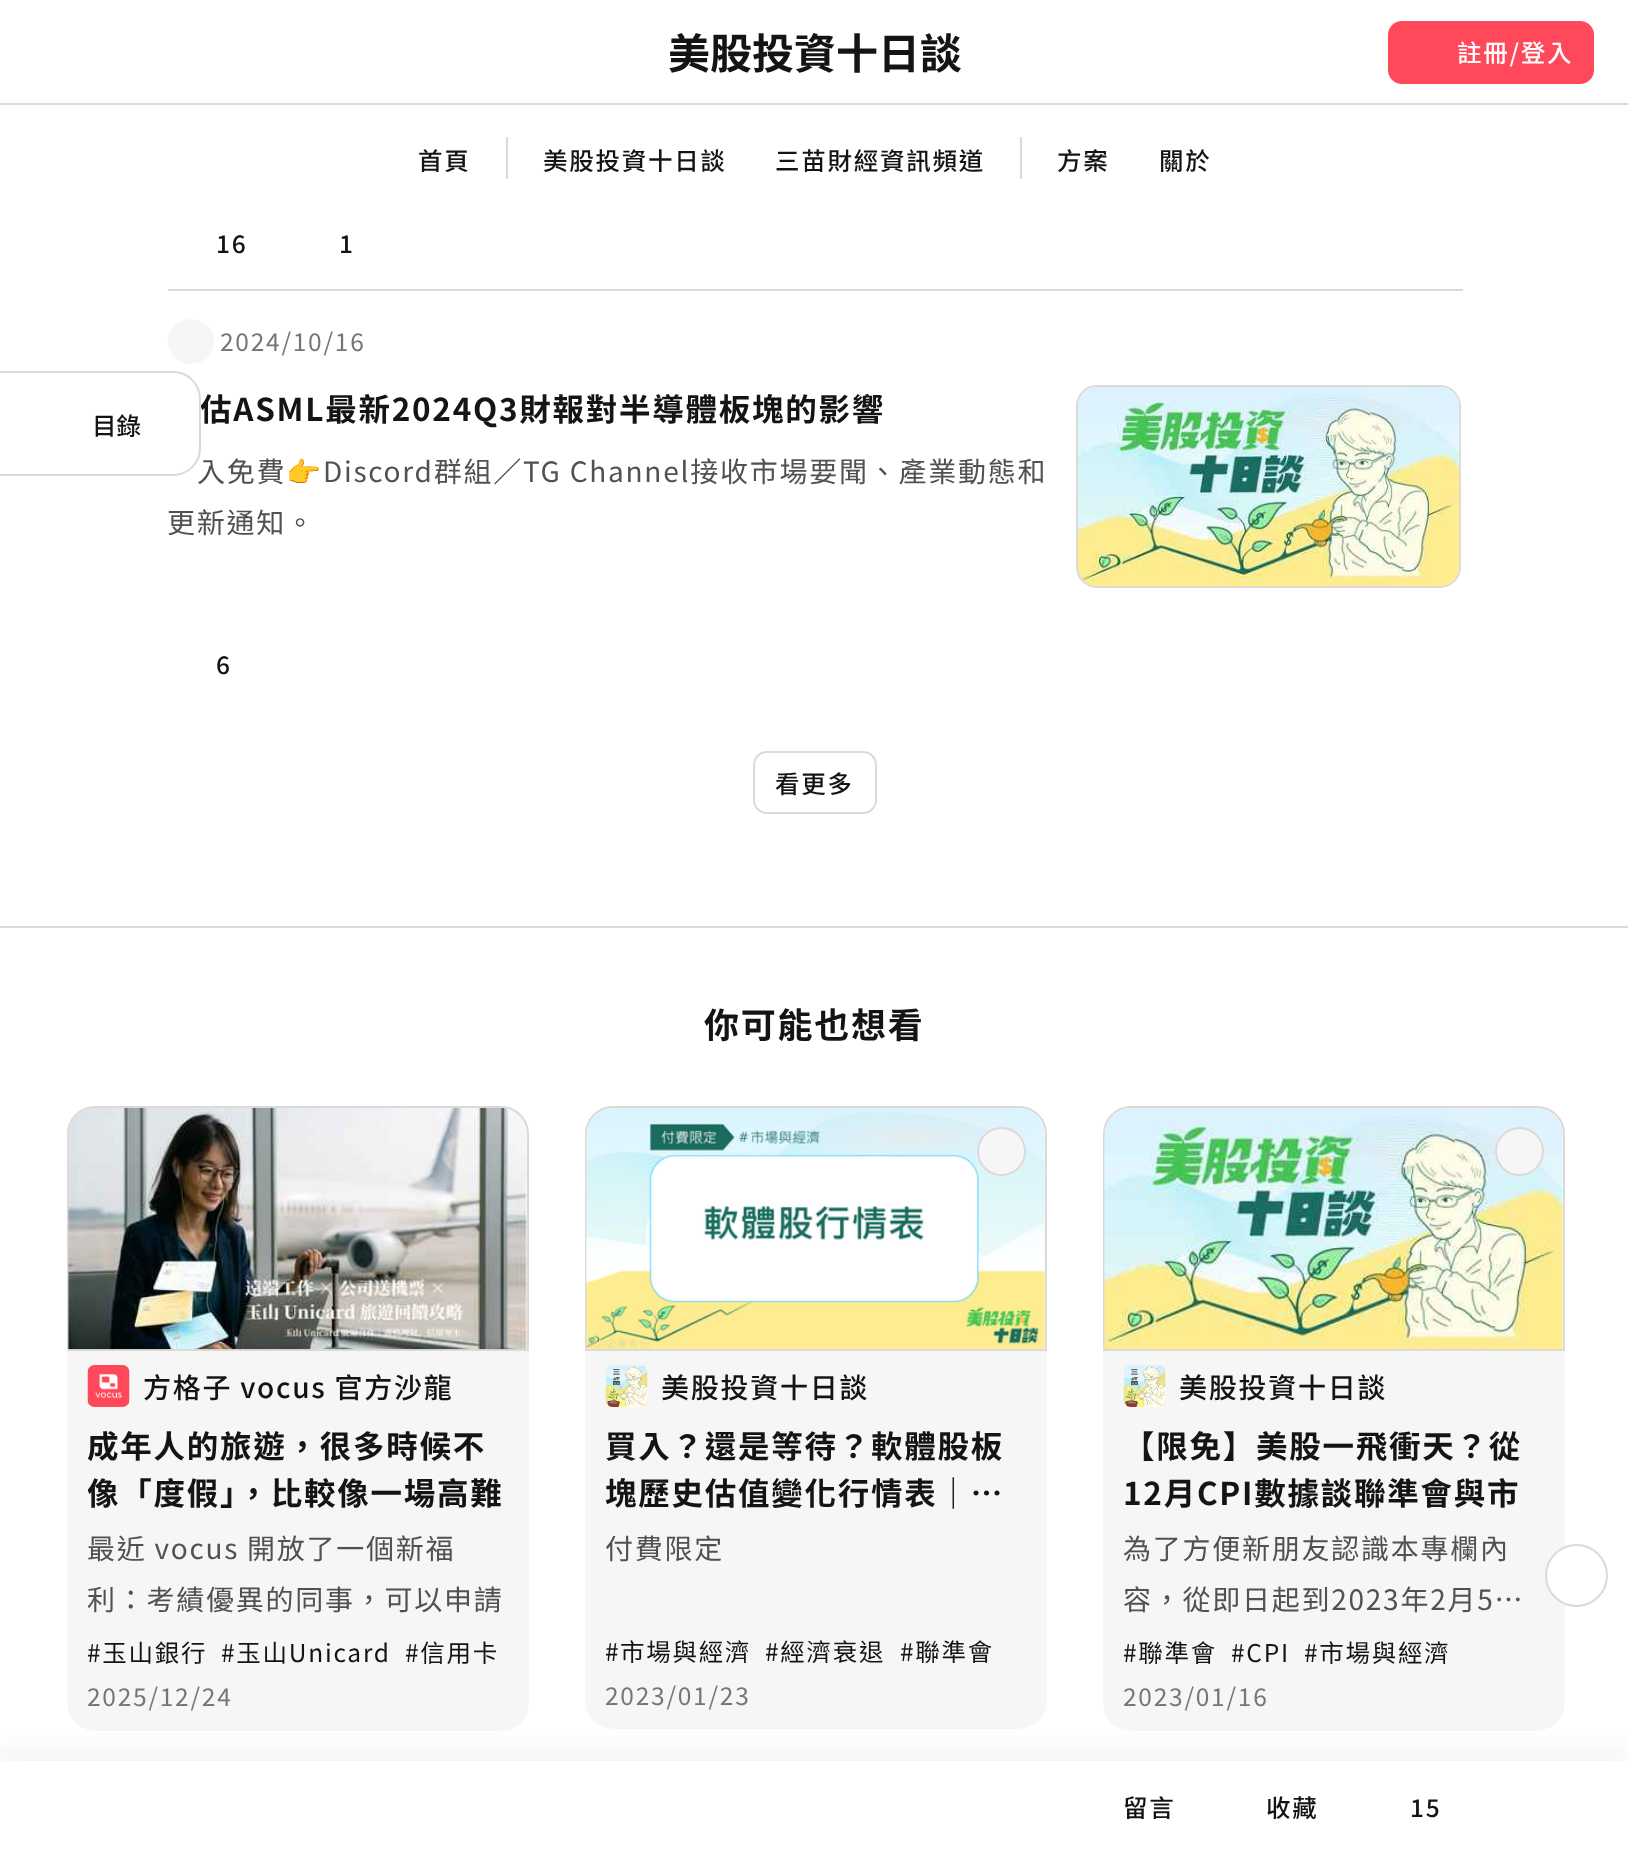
<svg xmlns="http://www.w3.org/2000/svg" width="1628" height="1851" viewBox="0 0 1628 1851">
  <defs>
    <clipPath id="clip1"><rect x="88" y="1421" width="420" height="95"/></clipPath>
    <clipPath id="clip2"><rect x="606" y="1636" width="145" height="30" rx="11"/></clipPath>
    <filter id="blur1" x="-50%" y="-200%" width="200%" height="500%"><feGaussianBlur stdDeviation="14"/></filter>
  </defs>
  <rect width="100%" height="100%" fill="#ffffff"/>
  <rect x="0" y="103" width="1628" height="2" fill="#ddd9d8"/>
  <text x="668" y="69" font-family="Noto Sans TC" font-size="42" font-weight="bold" fill="#141413">美股投資十日談</text>
  <rect x="1388" y="21" width="206" height="63" rx="14" fill="#ff485a"/>
  <text x="1457" y="62" font-family="Noto Sans TC" font-size="24.5" font-weight="500" letter-spacing="1.75" fill="#ffffff">註冊/登入</text>
  <text x="418" y="170" font-family="Noto Sans TC" font-size="24.5" font-weight="500" letter-spacing="1.75" fill="#141413">首頁</text>
  <rect x="506" y="137" width="2" height="42" fill="#ddd9d8"/>
  <text x="543" y="170" font-family="Noto Sans TC" font-size="24.5" font-weight="500" letter-spacing="1.75" fill="#141413">美股投資十日談</text>
  <text x="775" y="170" font-family="Noto Sans TC" font-size="24.5" font-weight="500" letter-spacing="1.75" fill="#141413">三苗財經資訊頻道</text>
  <rect x="1020" y="137" width="2" height="42" fill="#ddd9d8"/>
  <text x="1057" y="170" font-family="Noto Sans TC" font-size="24.5" font-weight="500" letter-spacing="1.75" fill="#141413">方案</text>
  <text x="1159" y="170" font-family="Noto Sans TC" font-size="24.5" font-weight="500" letter-spacing="1.75" fill="#141413">關於</text>
  <rect x="168" y="289" width="1295" height="2" fill="#ddd9d8"/>
  <text x="216" y="253" font-family="Noto Sans TC" font-size="24.5" font-weight="500" letter-spacing="1.75" fill="#141413">16</text>
  <text x="339" y="253" font-family="Noto Sans TC" font-size="24.5" font-weight="500" letter-spacing="1.75" fill="#141413">1</text>
  <rect x="168" y="319" width="46" height="45" rx="22.5" fill="#f6f6f6"/>
  <text x="220" y="351" font-family="Noto Sans TC" font-size="24.5" letter-spacing="1.75" fill="#7a7574">2024/10/16</text>
  <text x="200" y="421" font-family="Noto Sans TC" font-size="31.5" font-weight="bold" letter-spacing="1.75" fill="#141413">估ASML最新2024Q3財報對半導體板塊的影響</text>
  <text x="197" y="482" font-family="Noto Sans TC" font-size="28" letter-spacing="1.75" fill="#535150">入免費</text>
  <text x="286" y="482" font-family="Noto Color Emoji" font-size="28" letter-spacing="1.75" fill="#535150">👉</text>
  <text x="323" y="482" font-family="Noto Sans TC" font-size="28" letter-spacing="1.75" fill="#535150">Discord群組／TG Channel接收市場要聞、產業動態和</text>
  <text x="167" y="533" font-family="Noto Sans TC" font-size="28" letter-spacing="1.75" fill="#535150">更新通知。</text>
  <rect x="1077" y="386" width="383" height="201" rx="20" fill="none" stroke="#ddd9d8" stroke-width="2"/>
  <rect x="1078" y="387" width="382" height="199" rx="19" fill="#ddd9d8"/>
  <image x="1078" y="387" width="381" height="199" href="img1.png"/>
  <image x="1078" y="387" width="382" height="200" href="img2.png"/>
  <text x="216" y="674" font-family="Noto Sans TC" font-size="24.5" font-weight="500" letter-spacing="1.75" fill="#141413">6</text>
  <rect x="754" y="752" width="122" height="61" rx="13" fill="none" stroke="#ddd9d8" stroke-width="2"/>
  <text x="775" y="793" font-family="Noto Sans TC" font-size="24.5" font-weight="500" letter-spacing="1.75" fill="#141413">看更多</text>
  <rect x="0" y="926" width="1628" height="2" fill="#ddd9d8"/>
  <text x="704" y="1038" font-family="Noto Sans TC" font-size="35" font-weight="bold" letter-spacing="1.75" fill="#141413">你可能也想看</text>
  <rect x="67" y="1106" width="462" height="625" rx="28" fill="#f6f6f6"/>
  <path d="M95 1107H501C516 1107 528 1119 528 1134V1350H68V1134C68 1119 80 1107 95 1107Z" fill="none" stroke="#ddd9d8" stroke-width="2"/>
  <image x="68" y="1107" width="459" height="243" href="img3.png"/>
  <image x="87" y="1365" width="43" height="42" href="img4.png"/>
  <text x="143" y="1398" font-family="Noto Sans TC" font-size="28" font-weight="500" letter-spacing="1.75" fill="#141413">方格子 vocus 官方沙龍</text>
  <text x="87" y="1458" font-family="Noto Sans TC" font-size="31.5" font-weight="bold" letter-spacing="1.75" fill="#141413">成年人的旅遊，很多時候不</text>
  <g clip-path="url(#clip1)">
    <text x="87" y="1505" font-family="Noto Sans TC" font-size="31.5" font-weight="bold" letter-spacing="1.75" fill="#141413">像「度假」，比較像一場高難</text>
  </g>
  <text x="87" y="1559" font-family="Noto Sans TC" font-size="28" letter-spacing="1.75" fill="#535150">最近 vocus 開放了一個新福</text>
  <text x="87" y="1610" font-family="Noto Sans TC" font-size="28" letter-spacing="1.75" fill="#535150">利：考績優異的同事，可以申請</text>
  <text x="87" y="1662" font-family="Noto Sans TC" font-size="24.5" letter-spacing="1.75" fill="#141413">#玉山銀行</text>
  <text x="221" y="1662" font-family="Noto Sans TC" font-size="24.5" letter-spacing="1.75" fill="#141413">#玉山Unicard</text>
  <text x="405" y="1662" font-family="Noto Sans TC" font-size="24.5" letter-spacing="1.75" fill="#141413">#信用卡</text>
  <text x="87" y="1706" font-family="Noto Sans TC" font-size="24.5" letter-spacing="1.75" fill="#7a7574">2025/12/24</text>
  <rect x="585" y="1106" width="462" height="623" rx="28" fill="#f6f6f6"/>
  <path d="M613 1107H1019C1034 1107 1046 1119 1046 1134V1350H586V1134C586 1119 598 1107 613 1107Z" fill="none" stroke="#ddd9d8" stroke-width="2"/>
  <image x="586" y="1108" width="459" height="242" href="img5.png"/>
  <circle cx="1001.5" cy="1151.5" r="23.5" fill="#f6f6f6" stroke="#ddd9d8" stroke-width="2"/>
  <image x="605" y="1365" width="43" height="42" href="img6.png"/>
  <text x="661" y="1398" font-family="Noto Sans TC" font-size="28" font-weight="500" letter-spacing="1.75" fill="#141413">美股投資十日談</text>
  <text x="605" y="1458" font-family="Noto Sans TC" font-size="31.5" font-weight="bold" letter-spacing="1.75" fill="#141413">買入？還是等待？軟體股板</text>
  <text x="605" y="1505" font-family="Noto Sans TC" font-size="31.5" font-weight="bold" letter-spacing="1.75" fill="#141413">塊歷史估值變化行情表｜…</text>
  <text x="605" y="1559" font-family="Noto Sans TC" font-size="28" letter-spacing="1.75" fill="#535150">付費限定</text>
  <g clip-path="url(#clip2)">
    <text x="605" y="1661" font-family="Noto Sans TC" font-size="24.5" letter-spacing="1.75" fill="#141413">#</text>
  </g>
  <text x="620" y="1661" font-family="Noto Sans TC" font-size="24.5" letter-spacing="1.75" fill="#141413">市場與經濟</text>
  <text x="765" y="1661" font-family="Noto Sans TC" font-size="24.5" letter-spacing="1.75" fill="#141413">#經濟衰退</text>
  <text x="900" y="1661" font-family="Noto Sans TC" font-size="24.5" letter-spacing="1.75" fill="#141413">#聯準會</text>
  <text x="605" y="1705" font-family="Noto Sans TC" font-size="24.5" letter-spacing="1.75" fill="#7a7574">2023/01/23</text>
  <rect x="1103" y="1106" width="462" height="625" rx="28" fill="#f6f6f6"/>
  <path d="M1131 1107H1537C1552 1107 1564 1119 1564 1134V1350H1104V1134C1104 1119 1116 1107 1131 1107Z" fill="none" stroke="#ddd9d8" stroke-width="2"/>
  <image x="1104" y="1108" width="459" height="242" href="img7.png"/>
  <circle cx="1519.5" cy="1151.5" r="23.5" fill="#f6f6f6" stroke="#ddd9d8" stroke-width="2"/>
  <image x="1123" y="1365" width="43" height="42" href="img8.png"/>
  <text x="1179" y="1398" font-family="Noto Sans TC" font-size="28" font-weight="500" letter-spacing="1.75" fill="#141413">美股投資十日談</text>
  <text x="1123" y="1458" font-family="Noto Sans TC" font-size="31.5" font-weight="bold" letter-spacing="1.75" fill="#141413">【限免】美股一飛衝天？從</text>
  <text x="1123" y="1505" font-family="Noto Sans TC" font-size="31.5" font-weight="bold" letter-spacing="1.75" fill="#141413">12月CPI數據談聯準會與市</text>
  <text x="1123" y="1559" font-family="Noto Sans TC" font-size="28" letter-spacing="1.75" fill="#535150">為了方便新朋友認識本專欄內</text>
  <text x="1123" y="1610" font-family="Noto Sans TC" font-size="28" letter-spacing="1.75" fill="#535150">容，從即日起到2023年2月5…</text>
  <text x="1123" y="1662" font-family="Noto Sans TC" font-size="24.5" letter-spacing="1.75" fill="#141413">#聯準會</text>
  <text x="1231" y="1662" font-family="Noto Sans TC" font-size="24.5" letter-spacing="1.75" fill="#141413">#CPI</text>
  <text x="1304" y="1662" font-family="Noto Sans TC" font-size="24.5" letter-spacing="1.75" fill="#141413">#市場與經濟</text>
  <text x="1123" y="1706" font-family="Noto Sans TC" font-size="24.5" letter-spacing="1.75" fill="#7a7574">2023/01/16</text>
  <path d="M-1 372H173C188 372 200 384 200 399V448C200 463 188 475 173 475H-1Z" fill="#ffffff" stroke="#ddd9d8" stroke-width="2"/>
  <text x="92" y="435" font-family="Noto Sans TC" font-size="24.5" font-weight="500" fill="#141413">目錄</text>
  <circle cx="1576.5" cy="1575.5" r="30.5" fill="#ffffff" stroke="#ddd9d8" stroke-width="2"/>
  <rect x="0" y="1754" width="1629" height="91" fill="#535150" fill-opacity="0.08" filter="url(#blur1)"/>
  <rect x="0" y="1761" width="1628" height="90" fill="#ffffff"/>
  <text x="1123" y="1817" font-family="Noto Sans TC" font-size="24.5" font-weight="500" letter-spacing="1.75" fill="#141413">留言</text>
  <text x="1266" y="1817" font-family="Noto Sans TC" font-size="24.5" font-weight="500" letter-spacing="1.75" fill="#141413">收藏</text>
  <text x="1410" y="1817" font-family="Noto Sans TC" font-size="24.5" font-weight="500" letter-spacing="1.75" fill="#141413">15</text>
</svg>
